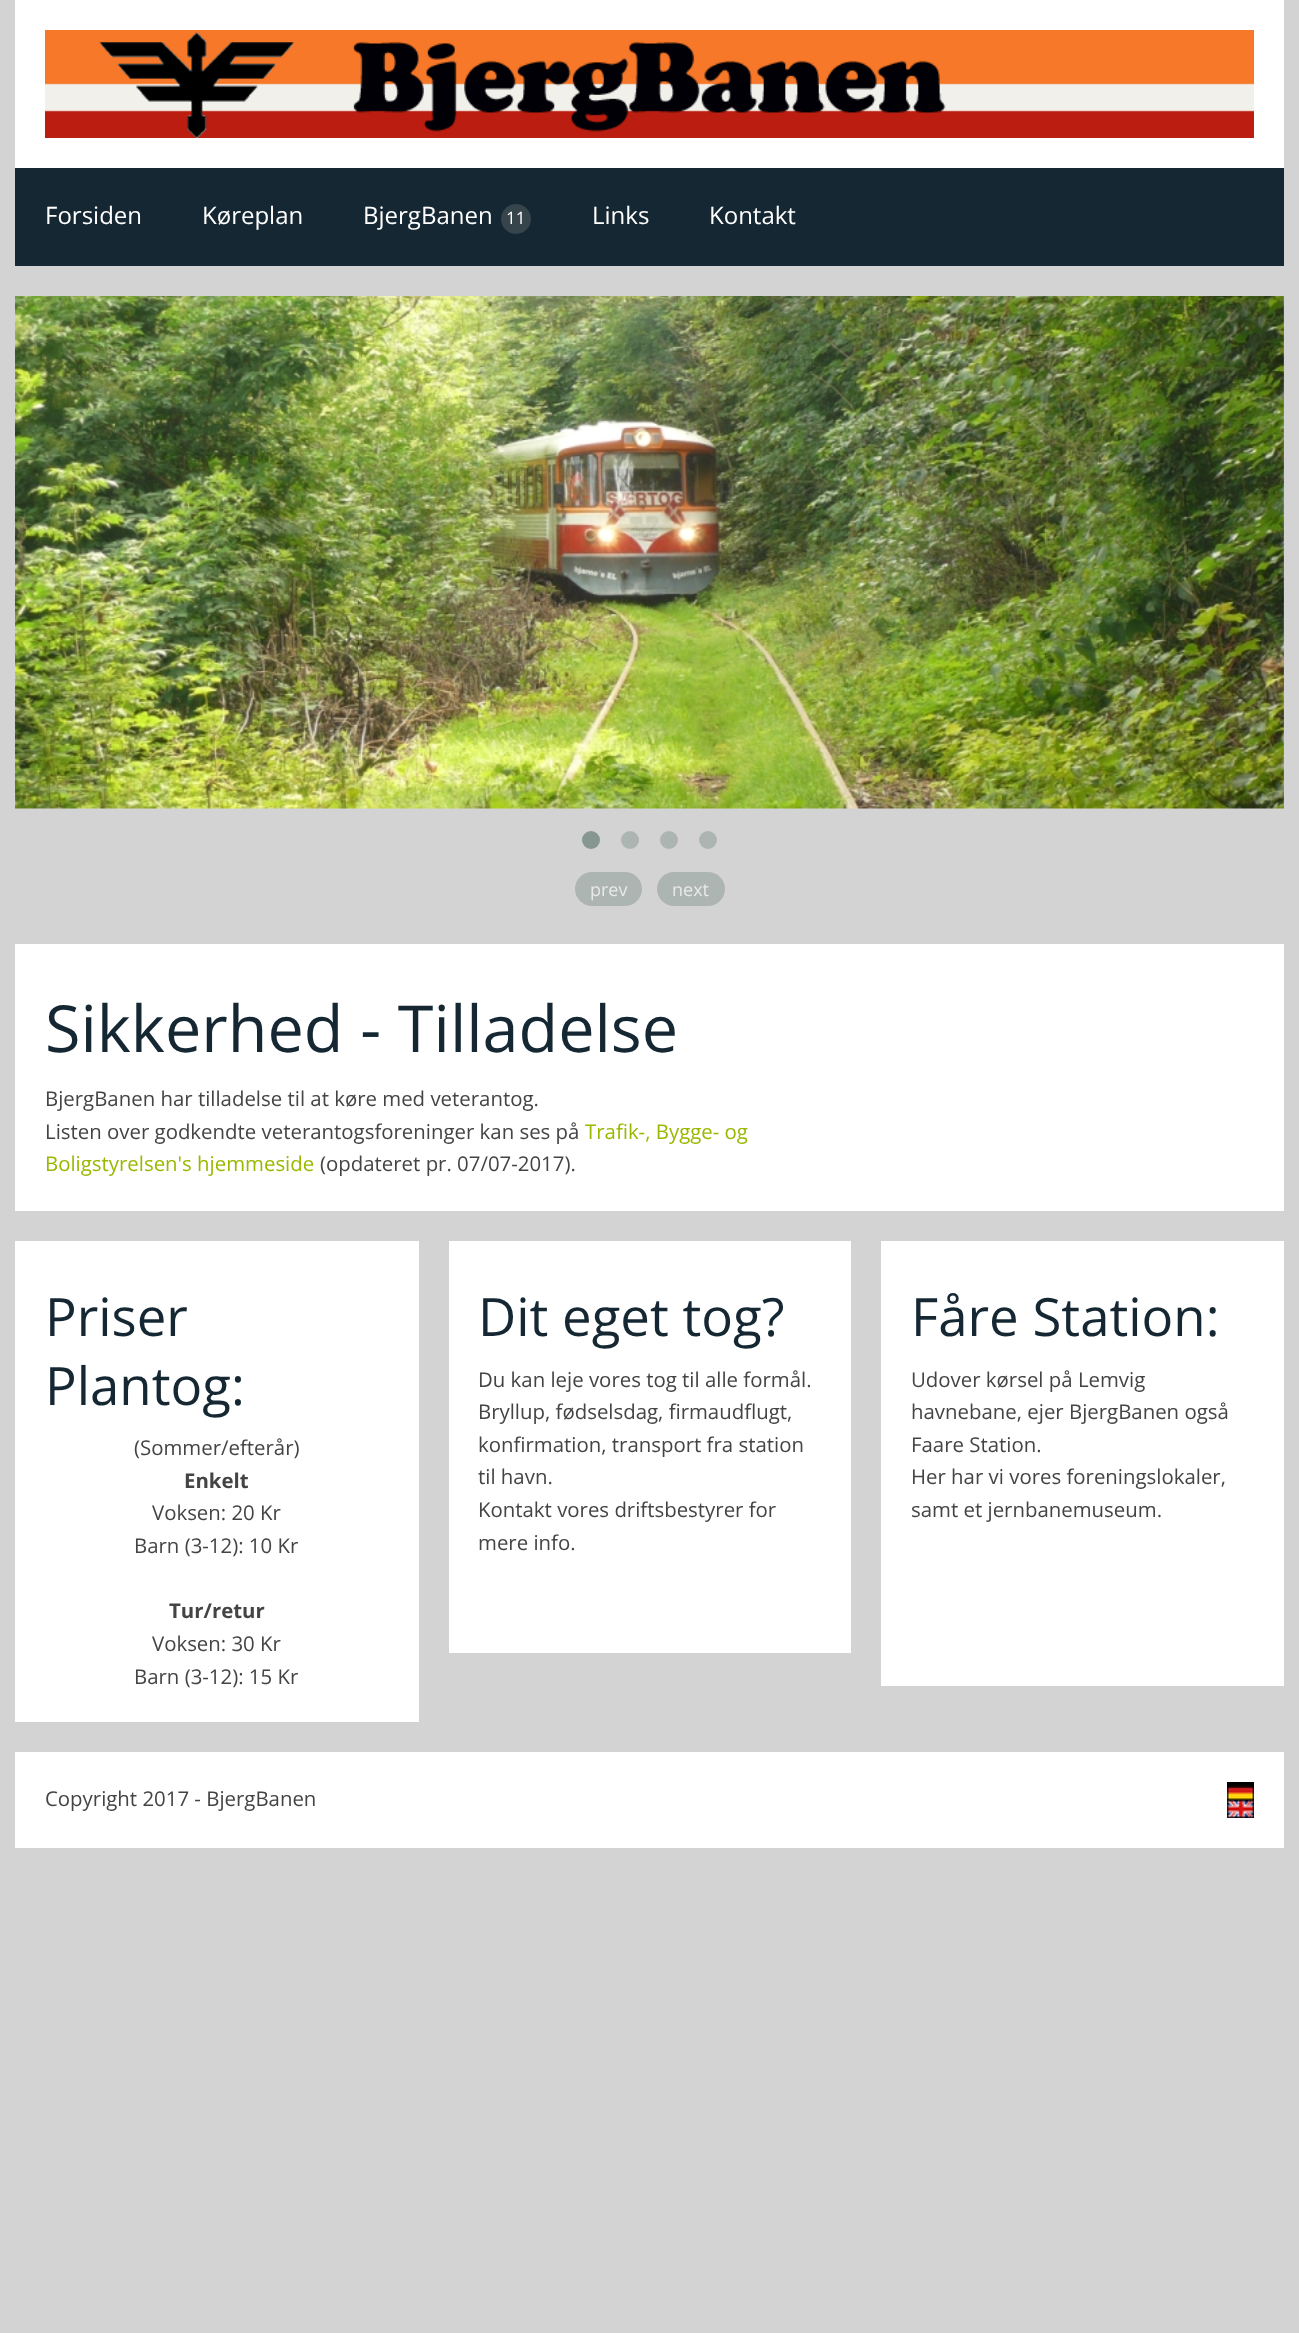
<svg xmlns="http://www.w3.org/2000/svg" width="1299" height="2333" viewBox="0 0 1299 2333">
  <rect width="100%" height="100%" fill="#d3d3d3"/>
  <rect x="15" y="0" width="1269" height="168" fill="#ffffff"/>
  <image x="45" y="30" width="1209" height="108" href="img1.png"/>
  <rect x="15" y="168" width="1269" height="98" fill="#152732"/>
  <text x="45" y="224" font-family="Open Sans" font-size="24" fill="#ffffff">Forsiden</text>
  <text x="202" y="224" font-family="Open Sans" font-size="24" fill="#ffffff">Køreplan</text>
  <text x="363" y="224" font-family="Open Sans" font-size="24" fill="#ffffff">BjergBanen</text>
  <circle cx="516" cy="219" r="15" fill="#36444c"/>
  <text x="506" y="224" font-family="Open Sans" font-size="17" fill="#ffffff">11</text>
  <text x="592" y="224" font-family="Open Sans" font-size="24" fill="#ffffff">Links</text>
  <text x="709" y="224" font-family="Open Sans" font-size="24" fill="#ffffff">Kontakt</text>
  <image x="15" y="296" width="1269" height="513" href="img2.png"/>
  <circle cx="591" cy="840" r="9" fill="#869791"/>
  <circle cx="630" cy="840" r="9" fill="#adb5b2"/>
  <circle cx="669" cy="840" r="9" fill="#adb5b2"/>
  <circle cx="708" cy="840" r="9" fill="#adb5b2"/>
  <rect x="575" y="872" width="67" height="34" rx="17" fill="#adb5b2"/>
  <text x="590" y="896" font-family="Open Sans" font-size="18" fill="#e9e9e9">prev</text>
  <rect x="657" y="872" width="68" height="34" rx="17" fill="#adb5b2"/>
  <text x="672" y="896" font-family="Open Sans" font-size="18" fill="#e9e9e9">next</text>
  <rect x="15" y="944" width="1269" height="267" fill="#ffffff"/>
  <text x="45" y="1052" font-family="Open Sans" font-size="64.75" fill="#152732">Sikkerhed - Tilladelse</text>
  <text x="45" y="1106" font-family="Open Sans" font-size="20.4" fill="#444444">BjergBanen har tilladelse til at køre med veterantog.</text>
  <text x="45" y="1139" font-family="Open Sans" font-size="20.4" fill="#444444">Listen over godkendte veterantogsforeninger kan ses på</text>
  <text x="585" y="1139" font-family="Open Sans" font-size="20.4" fill="#9bb800">Trafik-, Bygge- og</text>
  <text x="45" y="1171" font-family="Open Sans" font-size="20.4" fill="#9bb800">Boligstyrelsen's hjemmeside</text>
  <text x="320" y="1171" font-family="Open Sans" font-size="20.4" fill="#444444">(opdateret pr. 07/07-2017).</text>
  <rect x="15" y="1241" width="404" height="481" fill="#ffffff"/>
  <text x="45" y="1336" font-family="Open Sans" font-size="52.75" fill="#152732">Priser</text>
  <text x="45" y="1405" font-family="Open Sans" font-size="52.75" fill="#152732">Plantog:</text>
  <text x="134" y="1455" font-family="Open Sans" font-size="20.4" fill="#444444">(Sommer/efterår)</text>
  <text x="184" y="1488" font-family="Open Sans" font-size="20.4" font-weight="bold" fill="#444444">Enkelt</text>
  <text x="152" y="1520" font-family="Open Sans" font-size="20.4" fill="#444444">Voksen: 20 Kr</text>
  <text x="134" y="1553" font-family="Open Sans" font-size="20.4" fill="#444444">Barn (3-12): 10 Kr</text>
  <text x="169" y="1618" font-family="Open Sans" font-size="20.4" font-weight="bold" fill="#444444">Tur/retur</text>
  <text x="152" y="1651" font-family="Open Sans" font-size="20.4" fill="#444444">Voksen: 30 Kr</text>
  <text x="134" y="1684" font-family="Open Sans" font-size="20.4" fill="#444444">Barn (3-12): 15 Kr</text>
  <rect x="449" y="1241" width="402" height="412" fill="#ffffff"/>
  <text x="478" y="1336" font-family="Open Sans" font-size="52.75" fill="#152732">Dit eget tog?</text>
  <text x="478" y="1387" font-family="Open Sans" font-size="20.4" fill="#444444">Du kan leje vores tog til alle formål.</text>
  <text x="478" y="1419" font-family="Open Sans" font-size="20.4" fill="#444444">Bryllup, fødselsdag, firmaudflugt,</text>
  <text x="478" y="1452" font-family="Open Sans" font-size="20.4" fill="#444444">konfirmation, transport fra station</text>
  <text x="478" y="1484" font-family="Open Sans" font-size="20.4" fill="#444444">til havn.</text>
  <text x="478" y="1517" font-family="Open Sans" font-size="20.4" fill="#444444">Kontakt vores driftsbestyrer for</text>
  <text x="478" y="1550" font-family="Open Sans" font-size="20.4" fill="#444444">mere info.</text>
  <rect x="881" y="1241" width="403" height="445" fill="#ffffff"/>
  <text x="911" y="1336" font-family="Open Sans" font-size="52.75" fill="#152732">Fåre Station:</text>
  <text x="911" y="1387" font-family="Open Sans" font-size="20.4" fill="#444444">Udover kørsel på Lemvig</text>
  <text x="911" y="1419" font-family="Open Sans" font-size="20.4" fill="#444444">havnebane, ejer BjergBanen også</text>
  <text x="911" y="1452" font-family="Open Sans" font-size="20.4" fill="#444444">Faare Station.</text>
  <text x="911" y="1484" font-family="Open Sans" font-size="20.4" fill="#444444">Her har vi vores foreningslokaler,</text>
  <text x="911" y="1517" font-family="Open Sans" font-size="20.4" fill="#444444">samt et jernbanemuseum.</text>
  <rect x="15" y="1752" width="1269" height="96" fill="#ffffff"/>
  <text x="45" y="1806" font-family="Open Sans" font-size="20.4" fill="#444444">Copyright 2017 - BjergBanen</text>
  <image x="1227" y="1782" width="27" height="18" href="img3.png"/>
  <image x="1227" y="1800" width="27" height="18" href="img4.png"/>
</svg>
